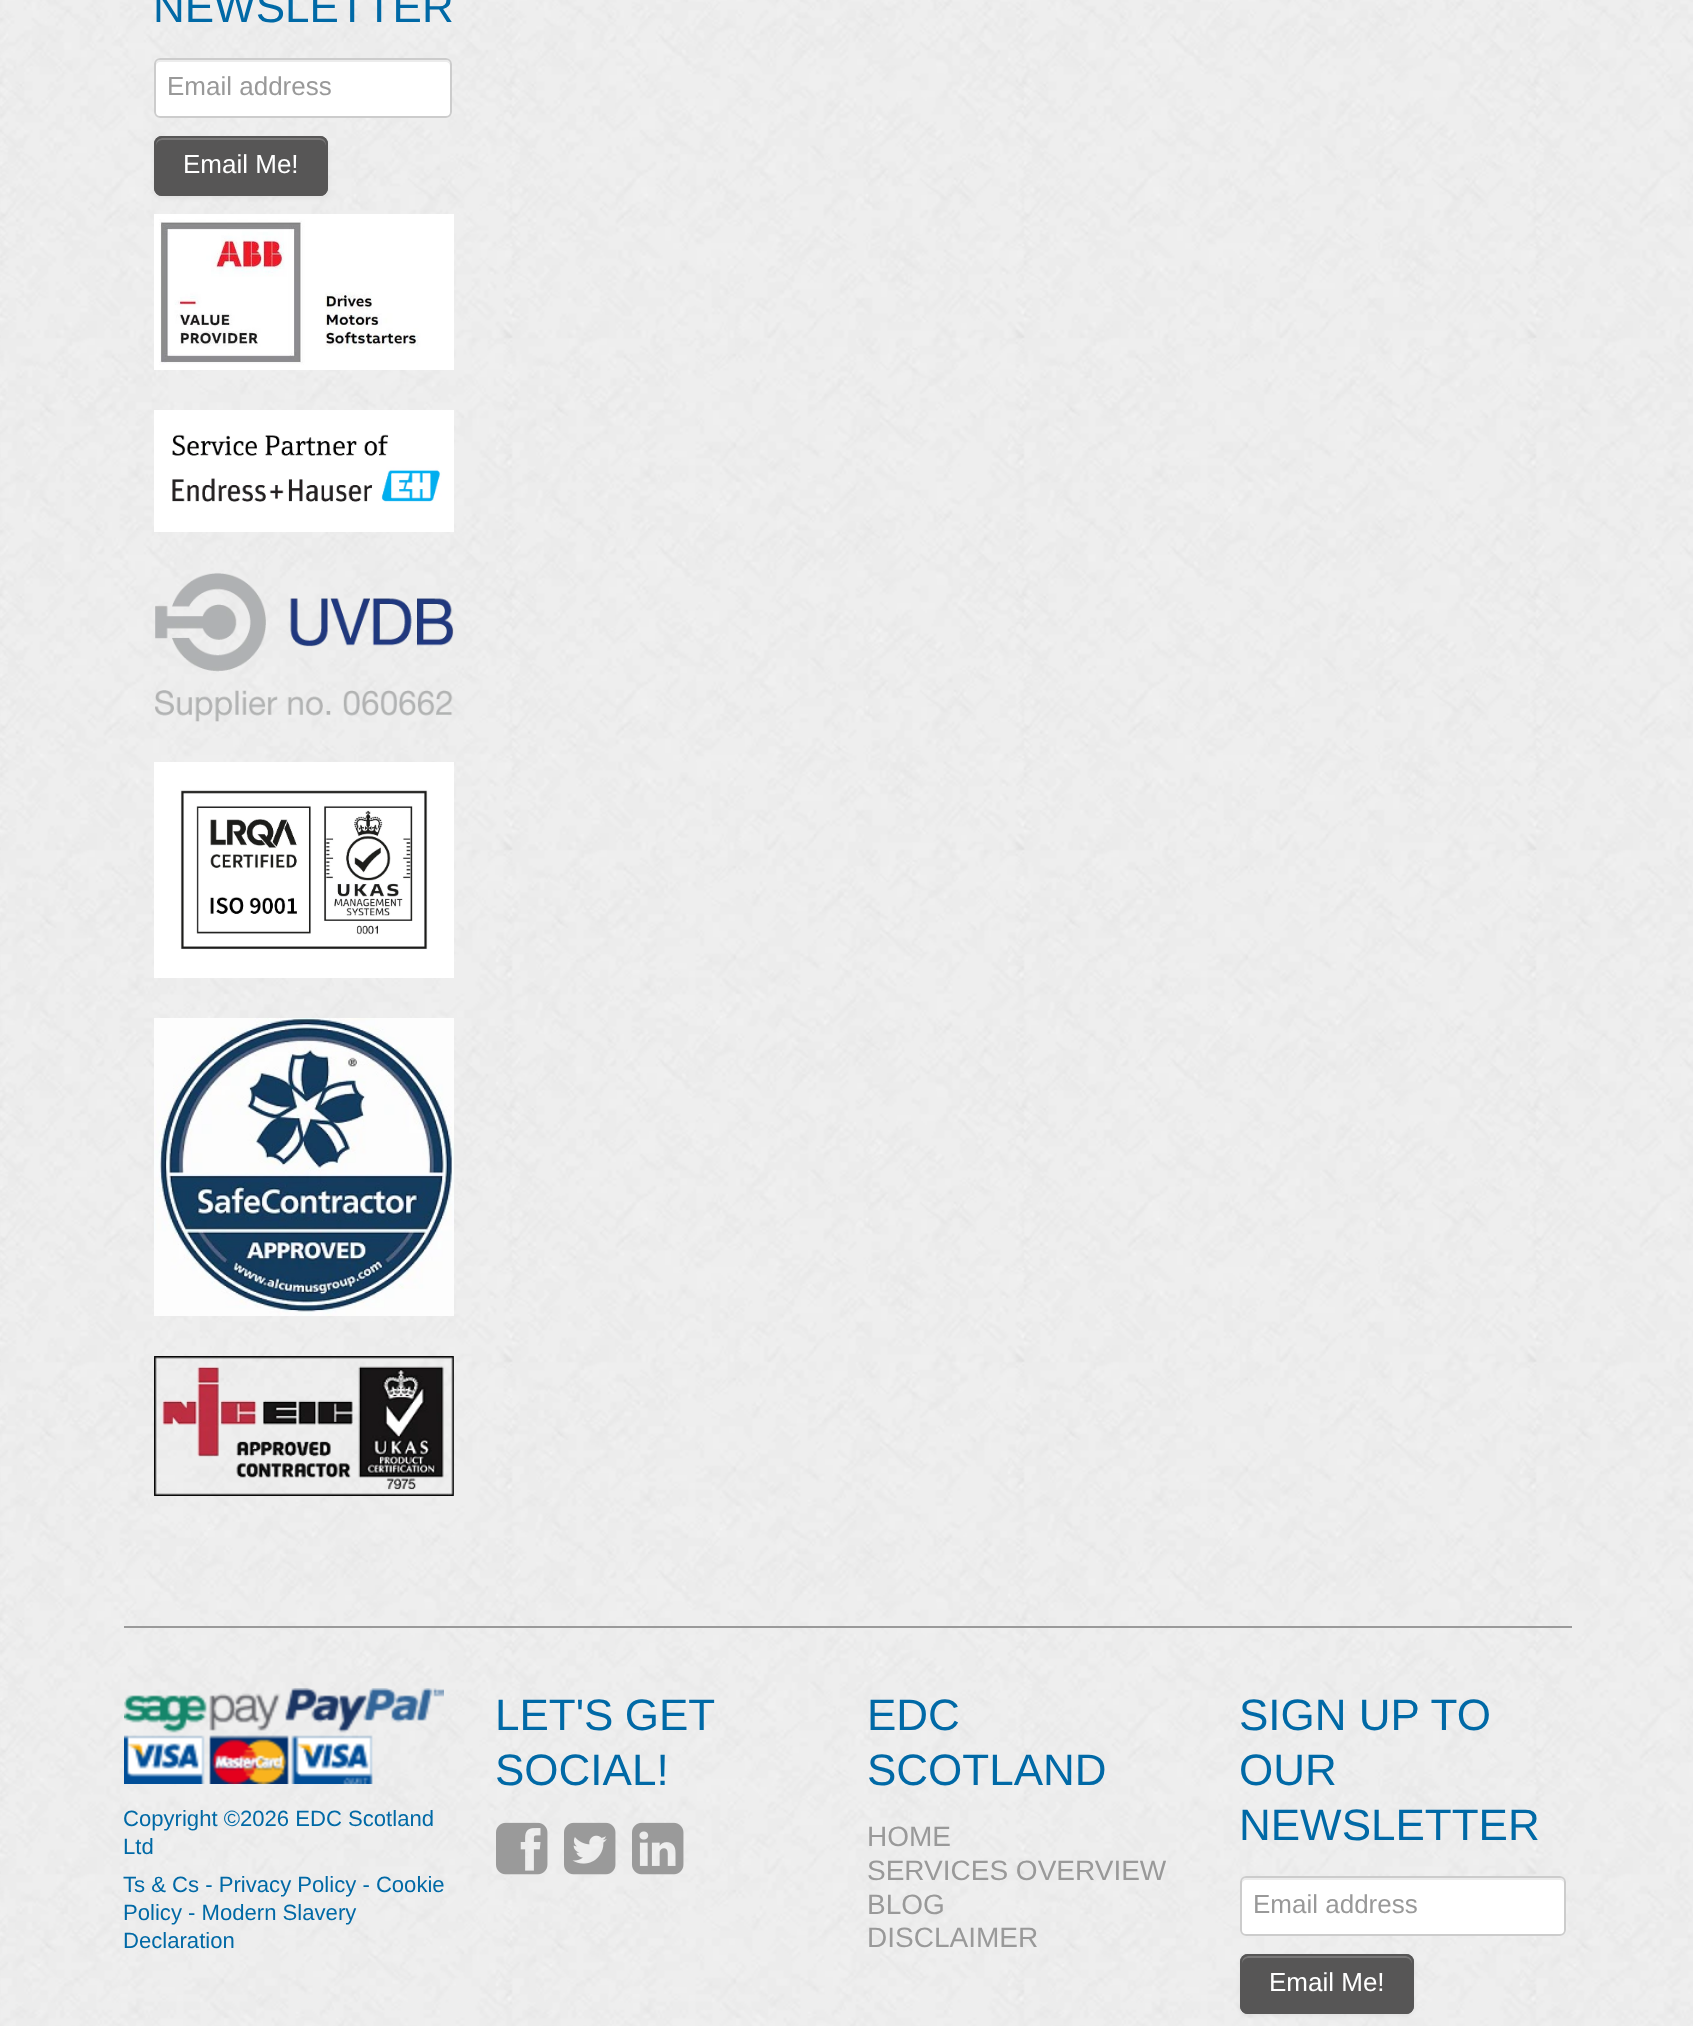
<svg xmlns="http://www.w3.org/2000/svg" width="1693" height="2026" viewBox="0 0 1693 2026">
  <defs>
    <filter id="blur1" x="-50%" y="-200%" width="200%" height="500%"><feGaussianBlur stdDeviation="2"/></filter>
  </defs>
  <rect width="100%" height="100%" fill="#ffffff"/>
  <image x="0" y="0" width="1693" height="2026" href="img1.png"/>
  <text x="153" y="22" font-family="Liberation Sans" font-size="44" fill="#0069a6">NEWSLETTER</text>
  <rect x="154" y="58" width="298" height="60" rx="6" fill="#ffffff"/>
  <path d="M160 62H446C448 62 450 64 450 66V64C450 62 448 60 446 60H160C158 60 156 62 156 64V66C156 64 158 62 160 62Z" fill="#ececec"/>
  <rect x="155" y="59" width="296" height="58" rx="5" fill="none" stroke="#cccccc" stroke-width="2"/>
  <text x="167" y="95" font-family="Liberation Sans" font-size="26" fill="#999999">Email address</text>
  <rect x="154" y="138" width="174" height="60" rx="8" fill="#000000" fill-opacity="0.05" filter="url(#blur1)"/>
  <rect x="154" y="136" width="174" height="60" rx="8" fill="#575656"/>
  <path d="M162 140H320C323 140 326 143 326 146V144C326 141 323 138 320 138H162C159 138 156 141 156 144V146C156 143 159 140 162 140Z" fill="#797878"/>
  <rect x="155" y="137" width="172" height="58" rx="7" fill="none" stroke="#575656" stroke-width="2"/>
  <text x="183" y="173" font-family="Liberation Sans" font-size="26" fill="#ffffff">Email Me!</text>
  <image x="154" y="214" width="300" height="156" href="img2.png"/>
  <image x="154" y="410" width="300" height="122" href="img3.png"/>
  <image x="155" y="573" width="299" height="149" href="img4.png"/>
  <image x="154" y="762" width="300" height="216" href="img5.png"/>
  <image x="154" y="1018" width="300" height="298" href="img6.png"/>
  <image x="154" y="1356" width="300" height="140" href="img7.png"/>
  <rect x="124" y="1626" width="1448" height="2" fill="#9a9a9a"/>
  <image x="124" y="1688" width="320" height="96" href="img8.png"/>
  <text x="123" y="1826" font-family="Liberation Sans" font-size="22.1" fill="#0069a6">Copyright ©2026 EDC Scotland</text>
  <text x="123" y="1854" font-family="Liberation Sans" font-size="22.1" fill="#0069a6">Ltd</text>
  <text x="123" y="1892" font-family="Liberation Sans" font-size="22.1" fill="#0069a6">Ts &amp; Cs - Privacy Policy - Cookie</text>
  <text x="123" y="1920" font-family="Liberation Sans" font-size="22.1" fill="#0069a6">Policy - Modern Slavery</text>
  <text x="123" y="1948" font-family="Liberation Sans" font-size="22.1" fill="#0069a6">Declaration</text>
  <text x="495" y="1730" word-spacing="-1" font-family="Liberation Sans" font-size="44" fill="#0069a6">LET'S GET</text>
  <text x="495" y="1785" font-family="Liberation Sans" font-size="44" fill="#0069a6">SOCIAL!</text>
  <image x="496" y="1822" width="52" height="53" href="img9.png"/>
  <image x="564" y="1822" width="52" height="53" href="img10.png"/>
  <image x="632" y="1822" width="52" height="53" href="img11.png"/>
  <text x="867" y="1730" font-family="Liberation Sans" font-size="44" fill="#0069a6">EDC</text>
  <text x="867" y="1785" font-family="Liberation Sans" font-size="44" fill="#0069a6">SCOTLAND</text>
  <text x="867" y="1846" font-family="Liberation Sans" font-size="28" fill="#999999">HOME</text>
  <text x="867" y="1880" font-family="Liberation Sans" font-size="28" fill="#999999">SERVICES OVERVIEW</text>
  <text x="867" y="1914" font-family="Liberation Sans" font-size="28" fill="#999999">BLOG</text>
  <text x="867" y="1947" font-family="Liberation Sans" font-size="28" fill="#999999">DISCLAIMER</text>
  <text x="1239" y="1730" font-family="Liberation Sans" font-size="44" fill="#0069a6">SIGN UP TO</text>
  <text x="1239" y="1785" font-family="Liberation Sans" font-size="44" fill="#0069a6">OUR</text>
  <text x="1239" y="1840" font-family="Liberation Sans" font-size="44" fill="#0069a6">NEWSLETTER</text>
  <rect x="1240" y="1876" width="326" height="60" rx="6" fill="#ffffff"/>
  <path d="M1246 1880H1560C1562 1880 1564 1882 1564 1884C1564 1881 1564 1878 1560 1878H1246C1242 1878 1242 1881 1242 1884C1242 1882 1244 1880 1246 1880Z" fill="#ececec"/>
  <rect x="1241" y="1877" width="324" height="58" rx="5" fill="none" stroke="#cccccc" stroke-width="2"/>
  <text x="1253" y="1913" font-family="Liberation Sans" font-size="26" fill="#999999">Email address</text>
  <rect x="1240" y="1956" width="174" height="60" rx="8" fill="#000000" fill-opacity="0.05" filter="url(#blur1)"/>
  <rect x="1240" y="1954" width="174" height="60" rx="8" fill="#575656"/>
  <path d="M1248 1958H1406C1409 1958 1412 1961 1412 1964V1962C1412 1959 1409 1956 1406 1956H1248C1245 1956 1242 1959 1242 1962V1964C1242 1961 1245 1958 1248 1958Z" fill="#797878"/>
  <rect x="1241" y="1955" width="172" height="58" rx="7" fill="none" stroke="#575656" stroke-width="2"/>
  <text x="1269" y="1991" font-family="Liberation Sans" font-size="26" fill="#ffffff">Email Me!</text>
</svg>
